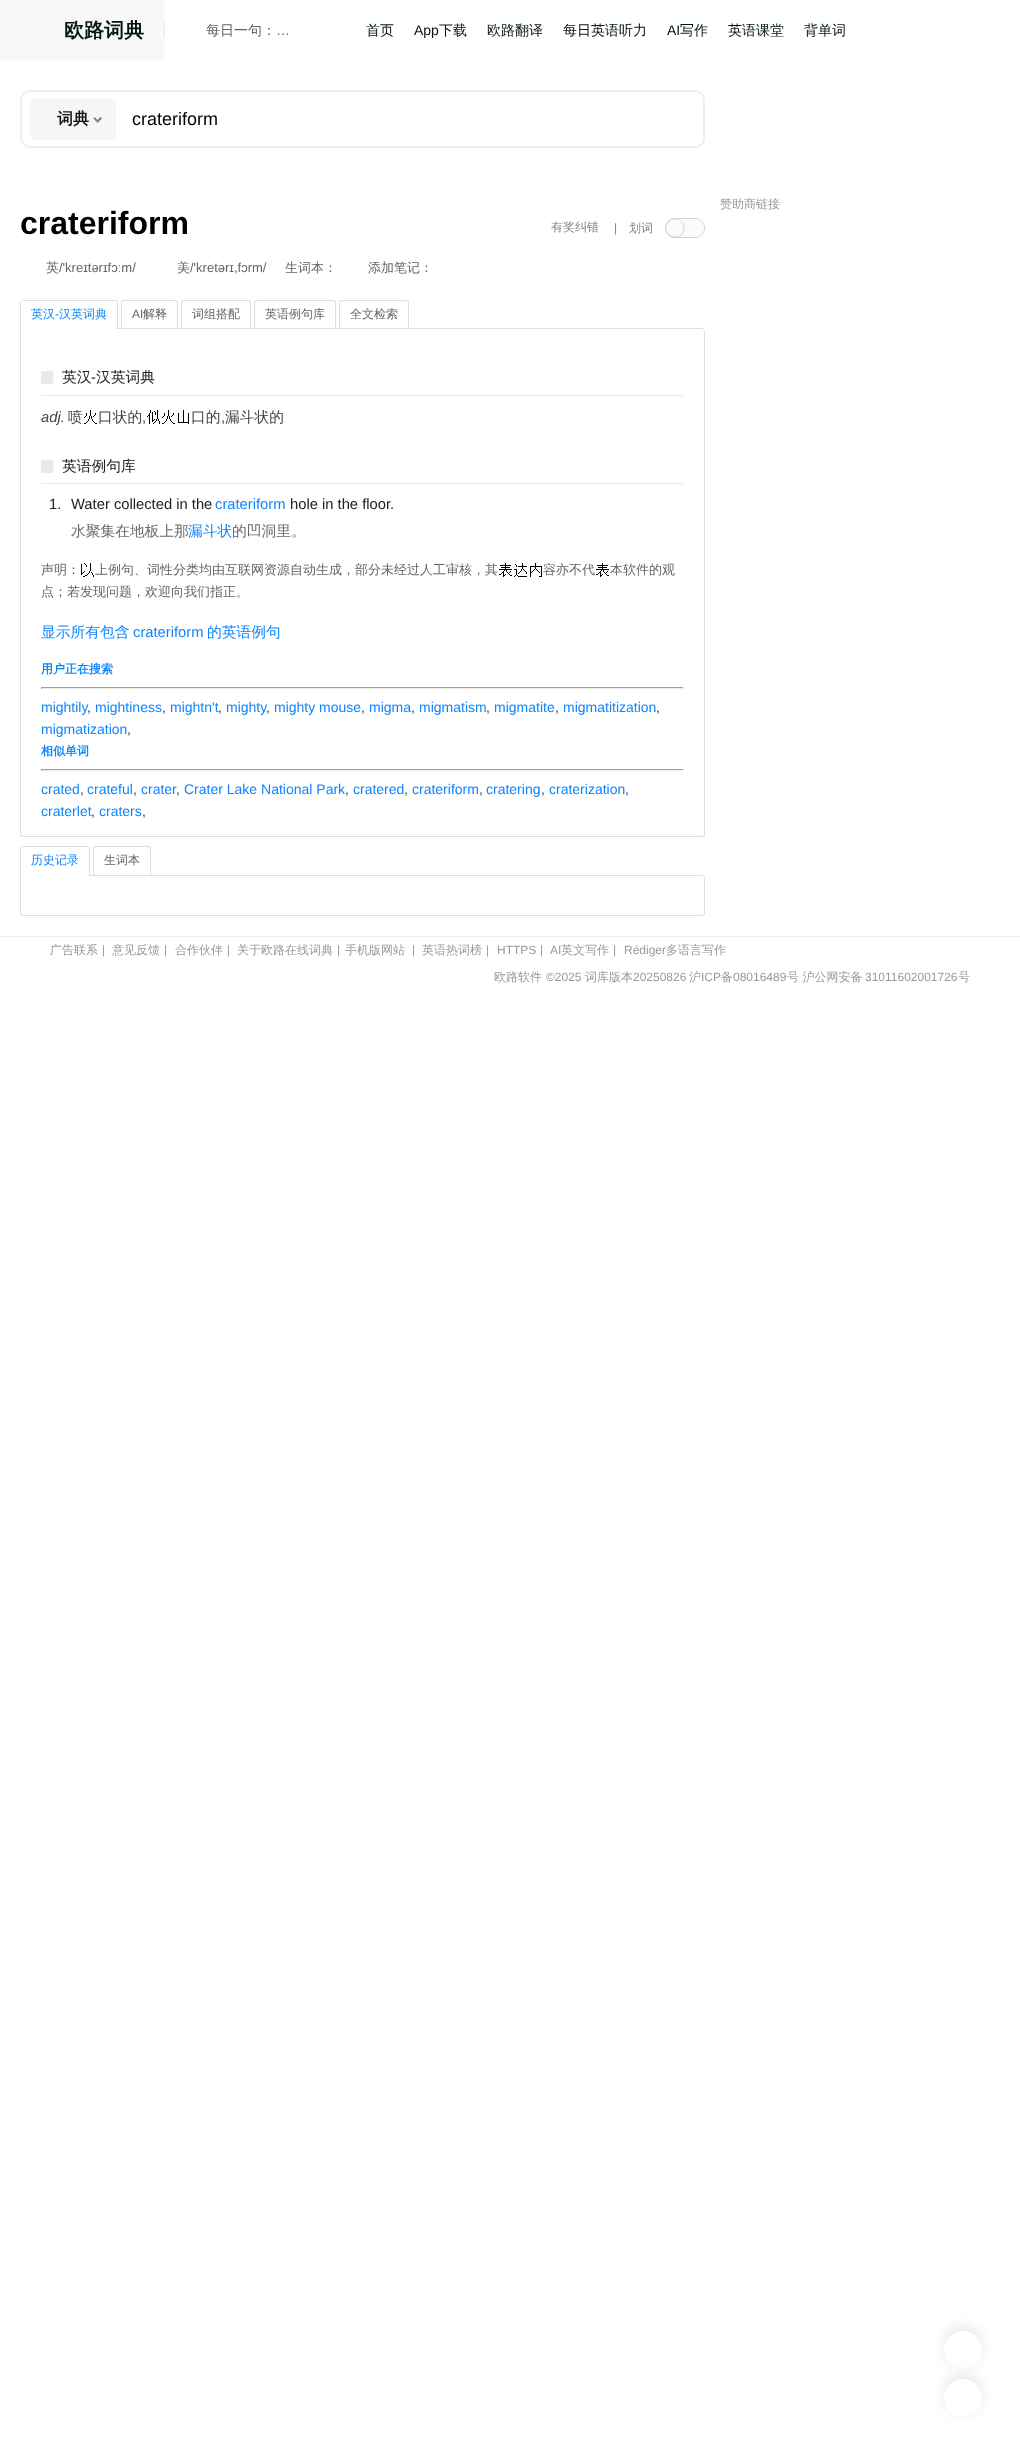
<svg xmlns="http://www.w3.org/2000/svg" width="1020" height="2447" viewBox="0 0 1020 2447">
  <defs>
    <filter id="blur1" x="-50%" y="-200%" width="200%" height="500%"><feGaussianBlur stdDeviation="7"/></filter>
    <clipPath id="clip1"><rect x="41" y="369" width="643" height="26"/></clipPath>
    <clipPath id="clip2"><rect x="41" y="458" width="643" height="25"/></clipPath>
  </defs>
  <rect width="100%" height="100%" fill="#ffffff"/>
  <rect x="0" y="0" width="164" height="60" fill="#f8f8f8"/>
  <text x="64" y="37" font-family="WenQuanYi Zen Hei" font-size="20" font-weight="bold" fill="#041413">欧路词典</text>
  <rect x="164" y="22" width="1" height="16" fill="#e8e9eb"/>
  <text x="206" y="35" font-family="WenQuanYi Zen Hei" font-size="14" font-weight="500" fill="#63656b">每日一句：</text>
  <text x="276" y="35" font-family="Liberation Sans" font-size="14" fill="#63656b">…</text>
  <text x="366" y="35" font-family="WenQuanYi Zen Hei" font-size="14" font-weight="500" fill="#041413">首页</text>
  <text x="414" y="35" font-family="Liberation Sans" font-size="14" fill="#041413">App</text>
  <text x="439" y="35" font-family="WenQuanYi Zen Hei" font-size="14" font-weight="500" fill="#041413">下载</text>
  <text x="487" y="35" font-family="WenQuanYi Zen Hei" font-size="14" font-weight="500" fill="#041413">欧路翻译</text>
  <text x="563" y="35" font-family="WenQuanYi Zen Hei" font-size="14" font-weight="500" fill="#041413">每日英语听力</text>
  <text x="667" y="35" font-family="Liberation Sans" font-size="14" fill="#041413">AI</text>
  <text x="680" y="35" font-family="WenQuanYi Zen Hei" font-size="14" font-weight="500" fill="#041413">写作</text>
  <text x="728" y="35" font-family="WenQuanYi Zen Hei" font-size="14" font-weight="500" fill="#041413">英语课堂</text>
  <text x="804" y="35" font-family="WenQuanYi Zen Hei" font-size="14" font-weight="500" fill="#041413">背单词</text>
  <rect x="21" y="91" width="683" height="56" rx="9" fill="none" stroke="#eeeeee" stroke-width="2"/>
  <rect x="30" y="98" width="86" height="42" rx="6" fill="#f5f6f7"/>
  <text x="57" y="124" font-family="WenQuanYi Zen Hei" font-size="16" font-weight="bold" fill="#131415">词典</text>
  <path d="M102 118.5L97.5 123V120L100.5 117Z" fill="#7b7b7c"/>
  <path d="M97.5 123L93.5 118.5L94.5 117L97.5 120Z" fill="#000000" fill-opacity="0.5"/>
  <text x="132" y="125" font-family="Liberation Sans" font-size="18" fill="#000000">crateriform</text>
  <text x="720" y="208" font-family="WenQuanYi Zen Hei" font-size="12" font-weight="500" fill="#999999">赞助商链接</text>
  <rect x="944" y="2327" width="38" height="38" rx="19" fill="#000000" fill-opacity="0.1" filter="url(#blur1)"/>
  <circle cx="963" cy="2350" r="19" fill="#ffffff"/>
  <rect x="944" y="2375" width="38" height="38" rx="19" fill="#000000" fill-opacity="0.1" filter="url(#blur1)"/>
  <circle cx="963" cy="2398" r="19" fill="#ffffff"/>
  <text x="20" y="234" font-family="Liberation Sans" font-size="32" font-weight="bold" fill="#000000">crateriform</text>
  <text x="551" y="231" font-family="WenQuanYi Zen Hei" font-size="12" font-weight="500" fill="#838383">有奖纠错</text>
  <text x="614" y="232" font-family="Liberation Sans" font-size="12" fill="#838383">|</text>
  <text x="629" y="232" font-family="WenQuanYi Zen Hei" font-size="12" font-weight="500" fill="#838383">划词</text>
  <image x="665" y="218" width="40" height="20" href="img1.png"/>
  <text x="46" y="272" font-family="WenQuanYi Zen Hei" font-size="13" font-weight="500" fill="#63656b">英</text>
  <text x="59" y="272" font-family="Liberation Sans" font-size="13" fill="#63656b">/'kreɪtərɪfɔːm/</text>
  <text x="177" y="272" font-family="WenQuanYi Zen Hei" font-size="13" font-weight="500" fill="#63656b">美</text>
  <text x="190" y="272" font-family="Liberation Sans" font-size="13" fill="#63656b">/'kretərɪ,fɔrm/</text>
  <text x="285" y="272" font-family="WenQuanYi Zen Hei" font-size="13" font-weight="500" fill="#63656b">生词本：</text>
  <text x="368" y="272" font-family="WenQuanYi Zen Hei" font-size="13" font-weight="500" fill="#63656b">添加笔记：</text>
  <rect x="118" y="328" width="585" height="1" fill="#dddddd"/>
  <path d="M23 300H115C117 300 118 301 118 303V329H20V303C20 301 21 300 23 300ZM23 301H115C116 301 117 302 117 303V329H21V303C21 302 22 301 23 301Z" fill="#dddddd" fill-rule="evenodd"/>
  <rect x="21" y="301" width="96" height="2" fill="#ffffff"/>
  <text x="31" y="318" font-family="WenQuanYi Zen Hei" font-size="12" font-weight="500" fill="#0d85ff">英汉</text>
  <text x="55" y="318" font-family="Liberation Sans" font-size="12" fill="#0d85ff">-</text>
  <text x="59" y="318" font-family="WenQuanYi Zen Hei" font-size="12" font-weight="500" fill="#0d85ff">汉英词典</text>
  <path d="M124 300H175C177 300 178 301 178 303V328H121V303C121 301 122 300 124 300ZM124 301H175C176 301 177 302 177 303V328H122V303C122 302 123 301 124 301Z" fill="#dddddd" fill-rule="evenodd"/>
  <text x="132" y="318" font-family="Liberation Sans" font-size="12" fill="#63656b">AI</text>
  <text x="143" y="318" font-family="WenQuanYi Zen Hei" font-size="12" font-weight="500" fill="#63656b">解释</text>
  <path d="M184 300H248C250 300 251 301 251 303V328H181V303C181 301 182 300 184 300ZM184 301H248C249 301 250 302 250 303V328H182V303C182 302 183 301 184 301Z" fill="#dddddd" fill-rule="evenodd"/>
  <text x="192" y="318" font-family="WenQuanYi Zen Hei" font-size="12" font-weight="500" fill="#63656b">词组搭配</text>
  <path d="M257 300H333C335 300 336 301 336 303V328H254V303C254 301 255 300 257 300ZM257 301H333C334 301 335 302 335 303V328H255V303C255 302 256 301 257 301Z" fill="#dddddd" fill-rule="evenodd"/>
  <text x="265" y="318" font-family="WenQuanYi Zen Hei" font-size="12" font-weight="500" fill="#63656b">英语例句库</text>
  <path d="M342 300H406C408 300 409 301 409 303V328H339V303C339 301 340 300 342 300ZM342 301H406C407 301 408 302 408 303V328H340V303C340 302 341 301 342 301Z" fill="#dddddd" fill-rule="evenodd"/>
  <text x="350" y="318" font-family="WenQuanYi Zen Hei" font-size="12" font-weight="500" fill="#63656b">全文检索</text>
  <path d="M20 329H702C704 329 705 330 705 332V834C705 836 704 837 702 837H23C21 837 20 836 20 834ZM21 329H702C703 329 704 330 704 332V834C704 835 703 836 702 836H23C22 836 21 835 21 834Z" fill="#dddddd" fill-rule="evenodd"/>
  <rect x="41" y="395" width="643" height="1" fill="#e8e9eb"/>
  <g clip-path="url(#clip1)">
    <path d="M53.5 373V380.5C53.5 385.5 51 384 47 384C45.5 384 40.5 385 40.5 382V374.5C40.5 370 43 371 47 371C49 371 53.5 370 53.5 373Z" fill="#e8e9eb"/>
  </g>
  <text x="62" y="382" font-family="WenQuanYi Zen Hei" font-size="14.75" font-weight="500" fill="#202124">英汉</text>
  <text x="91" y="382" font-family="Liberation Sans" font-size="14.75" fill="#202124">-</text>
  <text x="96" y="382" font-family="WenQuanYi Zen Hei" font-size="14.75" font-weight="500" fill="#202124">汉英词典</text>
  <text x="41" y="422" font-family="Liberation Sans" font-size="14.75" font-style="italic" fill="#444444">adj.</text>
  <text x="68" y="422" font-family="WenQuanYi Zen Hei" font-size="14.75" font-weight="500" fill="#444444">喷</text>
  <image x="84" y="410" width="13" height="14" href="img2.png"/>
  <text x="98" y="422" font-family="WenQuanYi Zen Hei" font-size="14.75" font-weight="500" fill="#444444">口状的</text>
  <text x="142" y="422" font-family="Liberation Sans" font-size="14.75" fill="#444444">,</text>
  <image x="147" y="410" width="13" height="14" href="img3.png"/>
  <image x="162" y="410" width="13" height="14" href="img2.png"/>
  <image x="178" y="410" width="11" height="14" href="img4.png"/>
  <text x="191" y="422" font-family="WenQuanYi Zen Hei" font-size="14.75" font-weight="500" fill="#444444">口的</text>
  <text x="221" y="422" font-family="Liberation Sans" font-size="14.75" fill="#444444">,</text>
  <text x="225" y="422" font-family="WenQuanYi Zen Hei" font-size="14.75" font-weight="500" fill="#444444">漏斗状的</text>
  <rect x="41" y="483" width="643" height="1" fill="#e8e9eb"/>
  <g clip-path="url(#clip2)">
    <path d="M53.5 462V469.5C53.5 474 51 473 47 473C45.5 473 40.5 474 40.5 471V463.5C40.5 458.5 43 460 47 460C49 460 53.5 459 53.5 462Z" fill="#e8e9eb"/>
  </g>
  <text x="62" y="471" font-family="WenQuanYi Zen Hei" font-size="14.75" font-weight="500" fill="#202124">英语例句库</text>
  <text x="49" y="509" font-family="Liberation Sans" font-size="14.75" fill="#202124">1.</text>
  <text x="71" y="509" font-family="Liberation Sans" font-size="14.75" fill="#202124">Water collected in the</text>
  <text x="215" y="509" font-family="Liberation Sans" font-size="14.75" fill="#0d85ff">crateriform</text>
  <text x="290" y="509" font-family="Liberation Sans" font-size="14.75" fill="#202124">hole in the floor.</text>
  <text x="71" y="536" font-family="WenQuanYi Zen Hei" font-size="14.75" font-weight="500" fill="#696969">水聚集在地板上那</text>
  <text x="188" y="536" font-family="WenQuanYi Zen Hei" font-size="14.75" font-weight="500" fill="#0d85ff">漏斗状</text>
  <text x="232" y="536" font-family="WenQuanYi Zen Hei" font-size="14.75" font-weight="500" fill="#696969">的凹洞里。</text>
  <text x="41" y="574" font-family="WenQuanYi Zen Hei" font-size="13" font-weight="500" fill="#63656b">声明：</text>
  <image x="81" y="563" width="13" height="14" href="img5.png"/>
  <text x="95" y="574" font-family="WenQuanYi Zen Hei" font-size="13" font-weight="500" fill="#63656b">上例句、词性分类均由互联网资源自动生成，部分未经过人工审核，其</text>
  <image x="499" y="563" width="13" height="14" href="img6.png"/>
  <image x="514" y="563" width="13" height="14" href="img7.png"/>
  <image x="530" y="563" width="12" height="14" href="img8.png"/>
  <text x="543" y="574" font-family="WenQuanYi Zen Hei" font-size="13" font-weight="500" fill="#63656b">容亦不代</text>
  <image x="596" y="563" width="13" height="14" href="img6.png"/>
  <text x="610" y="574" font-family="WenQuanYi Zen Hei" font-size="13" font-weight="500" fill="#63656b">本软件的观</text>
  <text x="41" y="596" font-family="WenQuanYi Zen Hei" font-size="13" font-weight="500" fill="#63656b">点；若发现问题，欢迎向我们指正。</text>
  <text x="41" y="637" font-family="WenQuanYi Zen Hei" font-size="14.75" font-weight="500" fill="#0d85ff">显示所有包含</text>
  <text x="133" y="637" font-family="Liberation Sans" font-size="14.75" fill="#0d85ff">crateriform</text>
  <text x="207" y="637" font-family="WenQuanYi Zen Hei" font-size="14.75" font-weight="500" fill="#0d85ff">的英语例句</text>
  <text x="41" y="673" font-family="WenQuanYi Zen Hei" font-size="12" font-weight="bold" fill="#0d85ff">用户正在搜索</text>
  <rect x="41" y="687" width="643" height="1" fill="#9f9f9f"/>
  <rect x="683" y="687" width="1" height="2" fill="#eeeeee"/>
  <rect x="41" y="688" width="643" height="1" fill="#eeeeee"/>
  <rect x="41" y="687" width="1" height="2" fill="#9f9f9f"/>
  <text x="41" y="712" font-family="Liberation Sans" font-size="14" fill="#0d85ff">mightily</text>
  <text x="87" y="712" font-family="Liberation Sans" font-size="14" fill="#444444">,</text>
  <text x="95" y="712" font-family="Liberation Sans" font-size="14" fill="#0d85ff">mightiness</text>
  <text x="162" y="712" font-family="Liberation Sans" font-size="14" fill="#444444">,</text>
  <text x="170" y="712" font-family="Liberation Sans" font-size="14" fill="#0d85ff">mightn't</text>
  <text x="218" y="712" font-family="Liberation Sans" font-size="14" fill="#444444">,</text>
  <text x="226" y="712" font-family="Liberation Sans" font-size="14" fill="#0d85ff">mighty</text>
  <text x="274" y="712" font-family="Liberation Sans" font-size="14" fill="#0d85ff">mighty mouse</text>
  <text x="369" y="712" font-family="Liberation Sans" font-size="14" fill="#0d85ff">migma</text>
  <text x="419" y="712" font-family="Liberation Sans" font-size="14" fill="#0d85ff">migmatism</text>
  <text x="494" y="712" font-family="Liberation Sans" font-size="14" fill="#0d85ff">migmatite</text>
  <text x="563" y="712" font-family="Liberation Sans" font-size="14" fill="#0d85ff">migmatitization</text>
  <text x="266" y="712" font-family="Liberation Sans" font-size="14" fill="#444444">,</text>
  <text x="361" y="712" font-family="Liberation Sans" font-size="14" fill="#444444">,</text>
  <text x="411" y="712" font-family="Liberation Sans" font-size="14" fill="#444444">,</text>
  <text x="486" y="712" font-family="Liberation Sans" font-size="14" fill="#444444">,</text>
  <text x="555" y="712" font-family="Liberation Sans" font-size="14" fill="#444444">,</text>
  <text x="656" y="712" font-family="Liberation Sans" font-size="14" fill="#444444">,</text>
  <text x="41" y="734" font-family="Liberation Sans" font-size="14" fill="#0d85ff">migmatization</text>
  <text x="127" y="734" font-family="Liberation Sans" font-size="14" fill="#444444">,</text>
  <text x="41" y="755" font-family="WenQuanYi Zen Hei" font-size="12" font-weight="bold" fill="#0d85ff">相似单词</text>
  <rect x="41" y="769" width="643" height="1" fill="#9f9f9f"/>
  <rect x="683" y="769" width="1" height="2" fill="#eeeeee"/>
  <rect x="41" y="770" width="643" height="1" fill="#eeeeee"/>
  <rect x="41" y="769" width="1" height="2" fill="#9f9f9f"/>
  <text x="41" y="794" font-family="Liberation Sans" font-size="14" fill="#0d85ff">crated</text>
  <text x="80" y="794" font-family="Liberation Sans" font-size="14" fill="#444444">,</text>
  <text x="87" y="794" font-family="Liberation Sans" font-size="14" fill="#0d85ff">crateful</text>
  <text x="133" y="794" font-family="Liberation Sans" font-size="14" fill="#444444">,</text>
  <text x="141" y="794" font-family="Liberation Sans" font-size="14" fill="#0d85ff">crater</text>
  <text x="176" y="794" font-family="Liberation Sans" font-size="14" fill="#444444">,</text>
  <text x="184" y="794" font-family="Liberation Sans" font-size="14" fill="#0d85ff">Crater Lake National Park</text>
  <text x="345" y="794" font-family="Liberation Sans" font-size="14" fill="#444444">,</text>
  <text x="353" y="794" font-family="Liberation Sans" font-size="14" fill="#0d85ff">cratered</text>
  <text x="404" y="794" font-family="Liberation Sans" font-size="14" fill="#444444">,</text>
  <text x="412" y="794" font-family="Liberation Sans" font-size="14" fill="#0d85ff">crateriform</text>
  <text x="479" y="794" font-family="Liberation Sans" font-size="14" fill="#444444">,</text>
  <text x="486" y="794" font-family="Liberation Sans" font-size="14" fill="#0d85ff">cratering</text>
  <text x="541" y="794" font-family="Liberation Sans" font-size="14" fill="#444444">,</text>
  <text x="549" y="794" font-family="Liberation Sans" font-size="14" fill="#0d85ff">craterization</text>
  <text x="625" y="794" font-family="Liberation Sans" font-size="14" fill="#444444">,</text>
  <text x="41" y="816" font-family="Liberation Sans" font-size="14" fill="#0d85ff">craterlet</text>
  <text x="91" y="816" font-family="Liberation Sans" font-size="14" fill="#444444">,</text>
  <text x="99" y="816" font-family="Liberation Sans" font-size="14" fill="#0d85ff">craters</text>
  <text x="142" y="816" font-family="Liberation Sans" font-size="14" fill="#444444">,</text>
  <rect x="90" y="875" width="613" height="1" fill="#dddddd"/>
  <path d="M23 846H87C89 846 90 847 90 849V876H20V849C20 847 21 846 23 846ZM23 847H87C88 847 89 848 89 849V876H21V849C21 848 22 847 23 847Z" fill="#dddddd" fill-rule="evenodd"/>
  <rect x="21" y="847" width="68" height="2" fill="#ffffff"/>
  <text x="31" y="864" font-family="WenQuanYi Zen Hei" font-size="12" font-weight="500" fill="#0d85ff">历史记录</text>
  <path d="M96 846H148C150 846 151 847 151 849V875H93V849C93 847 94 846 96 846ZM96 847H148C149 847 150 848 150 849V875H94V849C94 848 95 847 96 847Z" fill="#dddddd" fill-rule="evenodd"/>
  <text x="104" y="864" font-family="WenQuanYi Zen Hei" font-size="12" font-weight="500" fill="#63656b">生词本</text>
  <path d="M20 876H702C704 876 705 877 705 879V913C705 915 704 916 702 916H23C21 916 20 915 20 913ZM21 876H702C703 876 704 877 704 879V913C704 914 703 915 702 915H23C22 915 21 914 21 913Z" fill="#dddddd" fill-rule="evenodd"/>
  <rect x="0" y="936" width="1020" height="1" fill="#ededed"/>
  <text x="50" y="954" font-family="WenQuanYi Zen Hei" font-size="12" font-weight="500" fill="#999999">广告联系</text>
  <text x="102" y="954" font-family="Liberation Sans" font-size="12" fill="#999999">|</text>
  <text x="112" y="954" font-family="WenQuanYi Zen Hei" font-size="12" font-weight="500" fill="#999999">意见反馈</text>
  <text x="164" y="954" font-family="Liberation Sans" font-size="12" fill="#999999">|</text>
  <text x="175" y="954" font-family="WenQuanYi Zen Hei" font-size="12" font-weight="500" fill="#999999">合作伙伴</text>
  <text x="227" y="954" font-family="Liberation Sans" font-size="12" fill="#999999">|</text>
  <text x="237" y="954" font-family="WenQuanYi Zen Hei" font-size="12" font-weight="500" fill="#999999">关于欧路在线词典</text>
  <text x="337" y="954" font-family="Liberation Sans" font-size="12" fill="#999999">|</text>
  <text x="345" y="954" font-family="WenQuanYi Zen Hei" font-size="12" font-weight="500" fill="#999999">手机版网站</text>
  <text x="412" y="954" font-family="Liberation Sans" font-size="12" fill="#999999">|</text>
  <text x="422" y="954" font-family="WenQuanYi Zen Hei" font-size="12" font-weight="500" fill="#999999">英语热词榜</text>
  <text x="486" y="954" font-family="Liberation Sans" font-size="12" fill="#999999">|</text>
  <text x="497" y="954" font-family="Liberation Sans" font-size="12" fill="#999999">HTTPS</text>
  <text x="540" y="954" font-family="Liberation Sans" font-size="12" fill="#999999">|</text>
  <text x="550" y="954" font-family="Liberation Sans" font-size="12" fill="#999999">AI</text>
  <text x="561" y="954" font-family="WenQuanYi Zen Hei" font-size="12" font-weight="500" fill="#999999">英文写作</text>
  <text x="613" y="954" font-family="Liberation Sans" font-size="12" fill="#999999">|</text>
  <text x="624" y="954" font-family="Liberation Sans" font-size="12" fill="#999999">Rédiger</text>
  <text x="666" y="954" font-family="WenQuanYi Zen Hei" font-size="12" font-weight="500" fill="#999999">多语言写作</text>
  <text x="494" y="981" font-family="WenQuanYi Zen Hei" font-size="12" font-weight="500" fill="#999999">欧路软件</text>
  <text x="546" y="981" font-family="Liberation Sans" font-size="12" fill="#999999">©2025</text>
  <text x="585" y="981" font-family="WenQuanYi Zen Hei" font-size="12" font-weight="500" fill="#999999">词库版本</text>
  <text x="633" y="981" font-family="Liberation Sans" font-size="12" fill="#999999">20250826</text>
  <text x="689" y="981" font-family="WenQuanYi Zen Hei" font-size="12" font-weight="500" fill="#999999">沪</text>
  <text x="701" y="981" font-family="Liberation Sans" font-size="12" fill="#999999">ICP</text>
  <text x="721" y="981" font-family="WenQuanYi Zen Hei" font-size="12" font-weight="500" fill="#999999">备</text>
  <text x="733" y="981" font-family="Liberation Sans" font-size="12" fill="#999999">08016489</text>
  <text x="787" y="981" font-family="WenQuanYi Zen Hei" font-size="12" font-weight="500" fill="#999999">号 沪公网安备</text>
  <text x="865" y="981" font-family="Liberation Sans" font-size="12" fill="#999999">31011602001726</text>
  <text x="958" y="981" font-family="WenQuanYi Zen Hei" font-size="12" font-weight="500" fill="#999999">号</text>
</svg>
